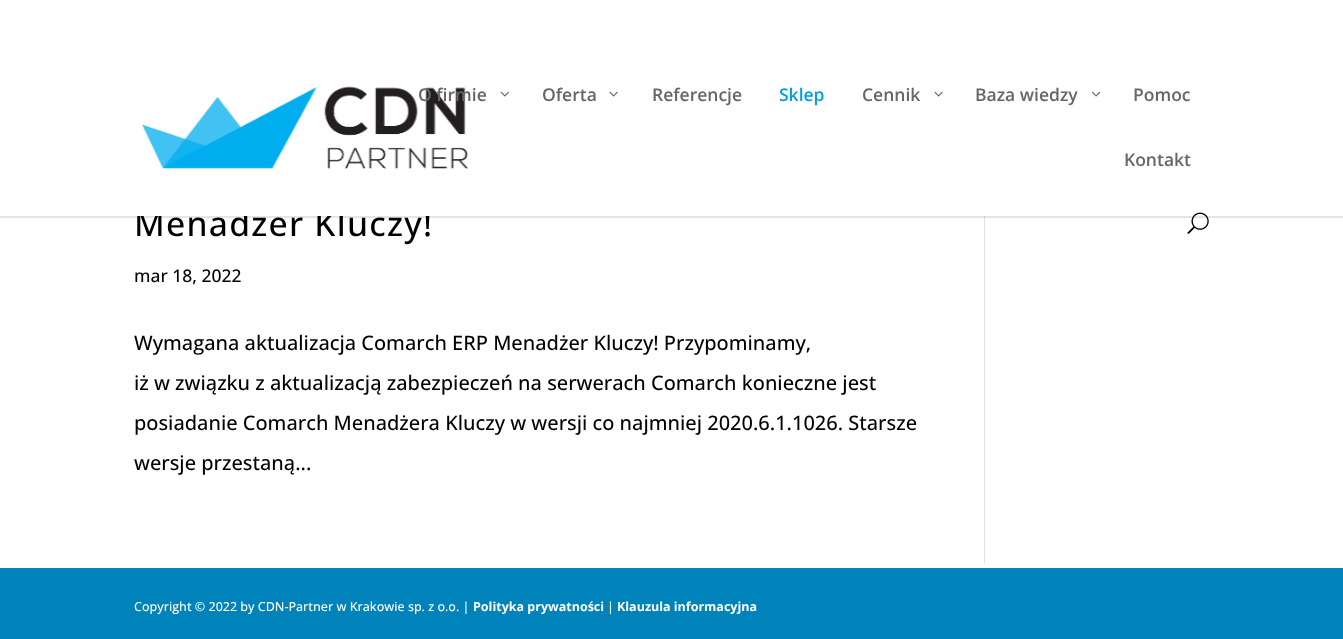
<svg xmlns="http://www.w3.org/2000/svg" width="1343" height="639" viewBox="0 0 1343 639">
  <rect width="100%" height="100%" fill="#ffffff"/>
  <rect x="984" y="216" width="1" height="348" fill="#e2e2e2"/>
  <path d="M0 216V218H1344V43V216Z" fill="#000000" fill-opacity="0.1"/>
  <text x="134" y="236" font-family="Open Sans" font-size="33.75" font-weight="500" letter-spacing="1.25" fill="#000000">Menadżer Kluczy!</text>
  <rect x="137" y="210" width="293" height="6" fill="#ffffff"/>
  <image x="141" y="86" width="327" height="83" href="img1.png"/>
  <text x="418" y="101" font-family="Open Sans" font-size="17.5" font-weight="600" fill="#666666">O firmie</text>
  <image x="500" y="91" width="9" height="6" href="img2.png"/>
  <text x="542" y="101" font-family="Open Sans" font-size="17.5" font-weight="600" fill="#666666">Oferta</text>
  <image x="609" y="91" width="9" height="6" href="img3.png"/>
  <text x="652" y="101" font-family="Open Sans" font-size="17.5" font-weight="600" fill="#666666">Referencje</text>
  <text x="779" y="101" font-family="Open Sans" font-size="17.5" font-weight="600" fill="#009de0">Sklep</text>
  <text x="862" y="101" font-family="Open Sans" font-size="17.5" font-weight="600" fill="#666666">Cennik</text>
  <image x="934" y="91" width="9" height="6" href="img3.png"/>
  <text x="975" y="101" font-family="Open Sans" font-size="17.5" font-weight="600" fill="#666666">Baza wiedzy</text>
  <image x="1092" y="91" width="9" height="6" href="img4.png"/>
  <text x="1133" y="101" font-family="Open Sans" font-size="17.5" font-weight="600" fill="#666666">Pomoc</text>
  <text x="1124" y="166" font-family="Open Sans" font-size="17.5" font-weight="600" fill="#666666">Kontakt</text>
  <image x="1187" y="212" width="22" height="22" href="img5.png"/>
  <text x="134" y="282" font-family="Open Sans" font-size="17.5" font-weight="500" fill="#000000">mar 18, 2022</text>
  <text x="134" y="350" font-family="Open Sans" font-size="20" font-weight="500" fill="#000000">Wymagana aktualizacja Comarch ERP Menadżer Kluczy! Przypominamy,</text>
  <text x="134" y="390" font-family="Open Sans" font-size="20" font-weight="500" fill="#000000">iż w związku z aktualizacją zabezpieczeń na serwerach Comarch konieczne jest</text>
  <text x="134" y="430" font-family="Open Sans" font-size="20" font-weight="500" fill="#000000">posiadanie Comarch Menadżera Kluczy w wersji co najmniej 2020.6.1.1026. Starsze</text>
  <text x="134" y="470" font-family="Open Sans" font-size="20" font-weight="500" fill="#000000">wersje przestaną...</text>
  <rect x="0" y="568" width="1343" height="71" fill="#0082ba"/>
  <text x="134" y="611" font-family="Open Sans" font-size="12.5" font-weight="500" fill="#ffffff">Copyright © 2022 by CDN-Partner w Krakowie sp. z o.o. |</text>
  <text x="473" y="611" font-family="Open Sans" font-size="12.5" font-weight="bold" fill="#ffffff">Polityka prywatności</text>
  <text x="607" y="611" font-family="Open Sans" font-size="12.5" font-weight="500" fill="#ffffff">|</text>
  <text x="617" y="611" font-family="Open Sans" font-size="12.5" font-weight="bold" fill="#ffffff">Klauzula informacyjna</text>
</svg>
